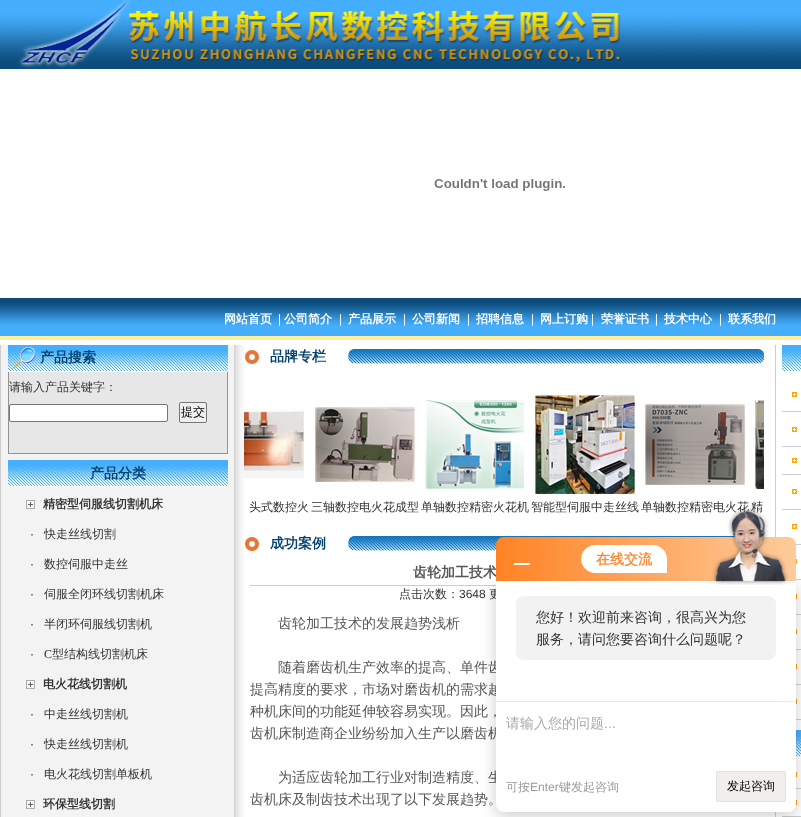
<svg xmlns="http://www.w3.org/2000/svg" width="801" height="817" viewBox="0 0 801 817">
  <defs>
    <filter id="blur1" x="-50%" y="-200%" width="200%" height="500%"><feGaussianBlur stdDeviation="8"/></filter>
    <linearGradient id="g1" gradientUnits="userSpaceOnUse" x1="496" y1="559" x2="796" y2="559"><stop offset="0" stop-color="#ff8324"/><stop offset="1" stop-color="#fecb9c"/></linearGradient>
  </defs>
  <rect width="100%" height="100%" fill="#ffffff"/>
  <image x="0" y="0" width="801" height="69" href="img1.png"/>
  <image x="434" y="179" width="131" height="12" href="img2.png"/>
  <image x="0" y="298" width="801" height="42" href="img3.png"/>
  <text x="224" y="323" font-family="WenQuanYi Zen Hei" font-size="12" font-weight="bold" fill="#ffffff">网站首页</text>
  <text x="278" y="323" font-family="Liberation Serif" font-size="13" font-weight="bold" fill="#ffffff">|</text>
  <text x="284" y="323" font-family="WenQuanYi Zen Hei" font-size="12" font-weight="bold" fill="#ffffff">公司简介</text>
  <text x="339" y="323" font-family="Liberation Serif" font-size="13" font-weight="bold" fill="#ffffff">|</text>
  <text x="348" y="323" font-family="WenQuanYi Zen Hei" font-size="12" font-weight="bold" fill="#ffffff">产品展示</text>
  <text x="403" y="323" font-family="Liberation Serif" font-size="13" font-weight="bold" fill="#ffffff">|</text>
  <text x="412" y="323" font-family="WenQuanYi Zen Hei" font-size="12" font-weight="bold" fill="#ffffff">公司新闻</text>
  <text x="467" y="323" font-family="Liberation Serif" font-size="13" font-weight="bold" fill="#ffffff">|</text>
  <text x="476" y="323" font-family="WenQuanYi Zen Hei" font-size="12" font-weight="bold" fill="#ffffff">招聘信息</text>
  <text x="531" y="323" font-family="Liberation Serif" font-size="13" font-weight="bold" fill="#ffffff">|</text>
  <text x="540" y="323" font-family="WenQuanYi Zen Hei" font-size="12" font-weight="bold" fill="#ffffff">网上订购</text>
  <text x="591" y="323" font-family="Liberation Serif" font-size="13" font-weight="bold" fill="#ffffff">|</text>
  <text x="601" y="323" font-family="WenQuanYi Zen Hei" font-size="12" font-weight="bold" fill="#ffffff">荣誉证书</text>
  <text x="655" y="323" font-family="Liberation Serif" font-size="13" font-weight="bold" fill="#ffffff">|</text>
  <text x="664" y="323" font-family="WenQuanYi Zen Hei" font-size="12" font-weight="bold" fill="#ffffff">技术中心</text>
  <text x="719" y="323" font-family="Liberation Serif" font-size="13" font-weight="bold" fill="#ffffff">|</text>
  <text x="728" y="323" font-family="WenQuanYi Zen Hei" font-size="12" font-weight="bold" fill="#ffffff">联系我们</text>
  <rect x="1" y="345" width="233" height="472" fill="#f3f3f3"/>
  <rect x="0" y="345" width="1" height="472" fill="#cdcdcd"/>
  <image x="8" y="345" width="220" height="27" href="img4.png"/>
  <image x="12" y="347" width="24" height="22" href="img5.png"/>
  <text x="40" y="362" font-family="WenQuanYi Zen Hei" font-size="14" font-weight="bold" fill="#04416e">产品搜索</text>
  <rect x="9" y="372" width="218" height="81" fill="#e7e7e7"/>
  <rect x="227" y="372" width="1" height="82" fill="#959393"/>
  <rect x="8" y="453" width="220" height="1" fill="#959393"/>
  <rect x="8" y="372" width="1" height="82" fill="#959393"/>
  <text x="9" y="391" font-family="WenQuanYi Zen Hei" font-size="12" font-weight="500" fill="#333333">请输入产品关键字：</text>
  <rect x="9.5" y="404.5" width="158" height="17" rx="1.5" fill="#ffffff" stroke="#767676"/>
  <rect x="179.5" y="402.5" width="27" height="20" rx="1.5" fill="#efefef" stroke="#767676"/>
  <text x="181" y="416" font-family="WenQuanYi Zen Hei" font-size="12" font-weight="500" fill="#000000">提交</text>
  <image x="8" y="460" width="220" height="27" href="img4.png"/>
  <text x="90" y="478" font-family="WenQuanYi Zen Hei" font-size="14" font-weight="bold" fill="#04416e">产品分类</text>
  <image x="26" y="500" width="9" height="9" href="img6.png"/>
  <text x="43" y="508" font-family="WenQuanYi Zen Hei" font-size="12" font-weight="bold" fill="#333333">精密型伺服线切割机床</text>
  <text x="30" y="538" font-family="Liberation Sans" font-size="12" fill="#333333">·</text>
  <text x="44" y="538" font-family="WenQuanYi Zen Hei" font-size="12" font-weight="500" fill="#333333">快走丝线切割</text>
  <text x="30" y="568" font-family="Liberation Sans" font-size="12" fill="#333333">·</text>
  <text x="44" y="568" font-family="WenQuanYi Zen Hei" font-size="12" font-weight="500" fill="#333333">数控伺服中走丝</text>
  <text x="30" y="598" font-family="Liberation Sans" font-size="12" fill="#333333">·</text>
  <text x="44" y="598" font-family="WenQuanYi Zen Hei" font-size="12" font-weight="500" fill="#333333">伺服全闭环线切割机床</text>
  <text x="30" y="628" font-family="Liberation Sans" font-size="12" fill="#333333">·</text>
  <text x="44" y="628" font-family="WenQuanYi Zen Hei" font-size="12" font-weight="500" fill="#333333">半闭环伺服线切割机</text>
  <text x="30" y="658" font-family="Liberation Sans" font-size="12" fill="#333333">·</text>
  <text x="44" y="658" font-family="Liberation Serif" font-size="12" fill="#333333">C</text>
  <text x="52" y="658" font-family="WenQuanYi Zen Hei" font-size="12" font-weight="500" fill="#333333">型结构线切割机床</text>
  <image x="26" y="680" width="9" height="9" href="img6.png"/>
  <text x="43" y="688" font-family="WenQuanYi Zen Hei" font-size="12" font-weight="bold" fill="#333333">电火花线切割机</text>
  <text x="30" y="718" font-family="Liberation Sans" font-size="12" fill="#333333">·</text>
  <text x="44" y="718" font-family="WenQuanYi Zen Hei" font-size="12" font-weight="500" fill="#333333">中走丝线切割机</text>
  <text x="30" y="748" font-family="Liberation Sans" font-size="12" fill="#333333">·</text>
  <text x="44" y="748" font-family="WenQuanYi Zen Hei" font-size="12" font-weight="500" fill="#333333">快走丝线切割机</text>
  <text x="30" y="778" font-family="Liberation Sans" font-size="12" fill="#333333">·</text>
  <text x="44" y="778" font-family="WenQuanYi Zen Hei" font-size="12" font-weight="500" fill="#333333">电火花线切割单板机</text>
  <image x="26" y="800" width="9" height="9" href="img6.png"/>
  <text x="43" y="808" font-family="WenQuanYi Zen Hei" font-size="12" font-weight="bold" fill="#333333">环保型线切割</text>
  <image x="234" y="345" width="10" height="472" href="img7.png"/>
  <image x="244" y="345" width="520" height="23" href="img8.png"/>
  <text x="270" y="361" font-family="WenQuanYi Zen Hei" font-size="14" font-weight="bold" fill="#04416e">品牌专栏</text>
  <image x="244" y="409" width="60" height="69" href="img9.png"/>
  <text x="249" y="511" font-family="WenQuanYi Zen Hei" font-size="12" font-weight="500" fill="#333333">头式数控火</text>
  <image x="315" y="407" width="100" height="75" href="img10.png"/>
  <text x="311" y="511" font-family="WenQuanYi Zen Hei" font-size="12" font-weight="500" fill="#333333">三轴数控电火花成型</text>
  <image x="425" y="400" width="100" height="89" href="img11.png"/>
  <text x="421" y="511" font-family="WenQuanYi Zen Hei" font-size="12" font-weight="500" fill="#333333">单轴数控精密火花机</text>
  <image x="535" y="395" width="100" height="99" href="img12.png"/>
  <text x="531" y="511" font-family="WenQuanYi Zen Hei" font-size="12" font-weight="500" fill="#333333">智能型伺服中走丝线</text>
  <image x="645" y="404" width="100" height="81" href="img13.png"/>
  <text x="641" y="511" font-family="WenQuanYi Zen Hei" font-size="12" font-weight="500" fill="#333333">单轴数控精密电火花</text>
  <image x="755" y="400" width="9" height="89" href="img14.png"/>
  <text x="751" y="511" font-family="WenQuanYi Zen Hei" font-size="12" font-weight="500" fill="#333333">精</text>
  <image x="244" y="532" width="520" height="23" href="img8.png"/>
  <text x="270" y="548" font-family="WenQuanYi Zen Hei" font-size="14" font-weight="bold" fill="#04416e">成功案例</text>
  <text x="413" y="577" font-family="WenQuanYi Zen Hei" font-size="14" font-weight="bold" fill="#575757">齿轮加工技术</text>
  <rect x="250" y="585" width="246" height="1" fill="#cccccc"/>
  <text x="399" y="598" font-family="WenQuanYi Zen Hei" font-size="12" font-weight="500" fill="#333333">点击次数：</text>
  <text x="459" y="598" font-family="Liberation Sans" font-size="12" fill="#333333">3648</text>
  <text x="489" y="598" font-family="WenQuanYi Zen Hei" font-size="12" font-weight="500" fill="#333333">更</text>
  <text x="278" y="628" font-family="WenQuanYi Zen Hei" font-size="14" font-weight="500" fill="#575757">齿轮加工技术的发展趋势浅析</text>
  <text x="278" y="672" font-family="WenQuanYi Zen Hei" font-size="14" font-weight="500" fill="#575757">随着磨齿机生产效率的提高、单件齿</text>
  <text x="250" y="694" font-family="WenQuanYi Zen Hei" font-size="14" font-weight="500" fill="#575757">提高精度的要求，市场对磨齿机的需求越</text>
  <text x="250" y="716" font-family="WenQuanYi Zen Hei" font-size="14" font-weight="500" fill="#575757">种机床间的功能延伸较容易实现。因此，</text>
  <text x="250" y="738" font-family="WenQuanYi Zen Hei" font-size="14" font-weight="500" fill="#575757">齿机床制造商企业纷纷加入生产以磨齿机</text>
  <text x="278" y="782" font-family="WenQuanYi Zen Hei" font-size="14" font-weight="500" fill="#575757">为适应齿轮加工行业对制造精度、生</text>
  <text x="250" y="804" font-family="WenQuanYi Zen Hei" font-size="14" font-weight="500" fill="#575757">齿机床及制齿技术出现了以下发展趋势。</text>
  <rect x="775" y="345" width="1" height="472" fill="#cdcdcd"/>
  <image x="782" y="345" width="19" height="27" href="img15.png"/>
  <rect x="782" y="411" width="19" height="1" fill="#cccccc"/>
  <image x="792" y="392" width="5" height="5" href="img16.png"/>
  <rect x="782" y="446" width="19" height="1" fill="#cccccc"/>
  <image x="792" y="427" width="5" height="5" href="img16.png"/>
  <rect x="782" y="474" width="19" height="1" fill="#cccccc"/>
  <image x="792" y="458" width="5" height="5" href="img16.png"/>
  <rect x="782" y="509" width="19" height="1" fill="#cccccc"/>
  <image x="792" y="489" width="5" height="5" href="img16.png"/>
  <rect x="795" y="544" width="6" height="1" fill="#cccccc"/>
  <image x="792" y="524" width="5" height="5" href="img16.png"/>
  <rect x="796" y="579" width="5" height="1" fill="#cccccc"/>
  <image x="796" y="559" width="1" height="5" href="img17.png"/>
  <rect x="796" y="614" width="5" height="1" fill="#cccccc"/>
  <image x="796" y="594" width="1" height="5" href="img17.png"/>
  <rect x="796" y="649" width="5" height="1" fill="#cccccc"/>
  <image x="796" y="629" width="1" height="5" href="img17.png"/>
  <rect x="796" y="684" width="5" height="1" fill="#cccccc"/>
  <image x="796" y="664" width="1" height="5" href="img17.png"/>
  <rect x="796" y="719" width="5" height="1" fill="#cccccc"/>
  <image x="796" y="699" width="1" height="5" href="img17.png"/>
  <image x="796" y="730" width="5" height="27" href="img18.png"/>
  <rect x="796" y="788" width="5" height="1" fill="#cccccc"/>
  <image x="796" y="772" width="1" height="5" href="img17.png"/>
  <rect x="782" y="816" width="19" height="1" fill="#cccccc"/>
  <image x="795" y="800" width="2" height="5" href="img19.png"/>
  <rect x="496" y="585" width="300" height="231" rx="8" fill="#000000" fill-opacity="0.2" filter="url(#blur1)"/>
  <path d="M504 537H788C792.5 537 796 540.5 796 545V581H496V545C496 540.5 499.5 537 504 537Z" fill="url(#g1)"/>
  <rect x="514" y="563" width="16" height="2" fill="#ffffff"/>
  <path d="M595 545H653C660.5 545 667 551.5 667 559V573H595C587.5 573 581 566.5 581 559C581 551.5 587.5 545 595 545Z" fill="#ffffff"/>
  <text x="596" y="564" font-family="WenQuanYi Zen Hei" font-size="14" font-weight="bold" fill="#fb8b36">在线交流</text>
  <path d="M496 581H796V804C796 808.5 792.5 812 788 812H504C499.5 812 496 808.5 496 804Z" fill="#ffffff"/>
  <image x="712" y="507" width="76" height="78" href="img20.png"/>
  <rect x="516" y="596" width="260" height="64" rx="8" fill="#f2f2f2"/>
  <text x="536" y="622" font-family="WenQuanYi Zen Hei" font-size="14" font-weight="500" fill="#333333">您好！欢迎前来咨询，很高兴为您</text>
  <text x="536" y="644" font-family="WenQuanYi Zen Hei" font-size="14" font-weight="500" fill="#333333">服务，请问您要咨询什么问题呢？</text>
  <rect x="496" y="701" width="300" height="1" fill="#eaeaea"/>
  <text x="506" y="728" font-family="WenQuanYi Zen Hei" font-size="14" font-weight="500" fill="#aaaaaa">请输入您的问题</text>
  <text x="604" y="728" font-family="Liberation Sans" font-size="14" fill="#aaaaaa">...</text>
  <text x="506" y="791" font-family="WenQuanYi Zen Hei" font-size="12" font-weight="500" fill="#999999">可按</text>
  <text x="530" y="791" font-family="Liberation Sans" font-size="12" fill="#999999">Enter</text>
  <text x="559" y="791" font-family="WenQuanYi Zen Hei" font-size="12" font-weight="500" fill="#999999">键发起咨询</text>
  <rect x="716.5" y="771.5" width="69" height="30" rx="1.5" fill="#f0efed" stroke="#e2e2e2"/>
  <text x="727" y="790" font-family="WenQuanYi Zen Hei" font-size="12" font-weight="500" fill="#000000">发起咨询</text>
</svg>
